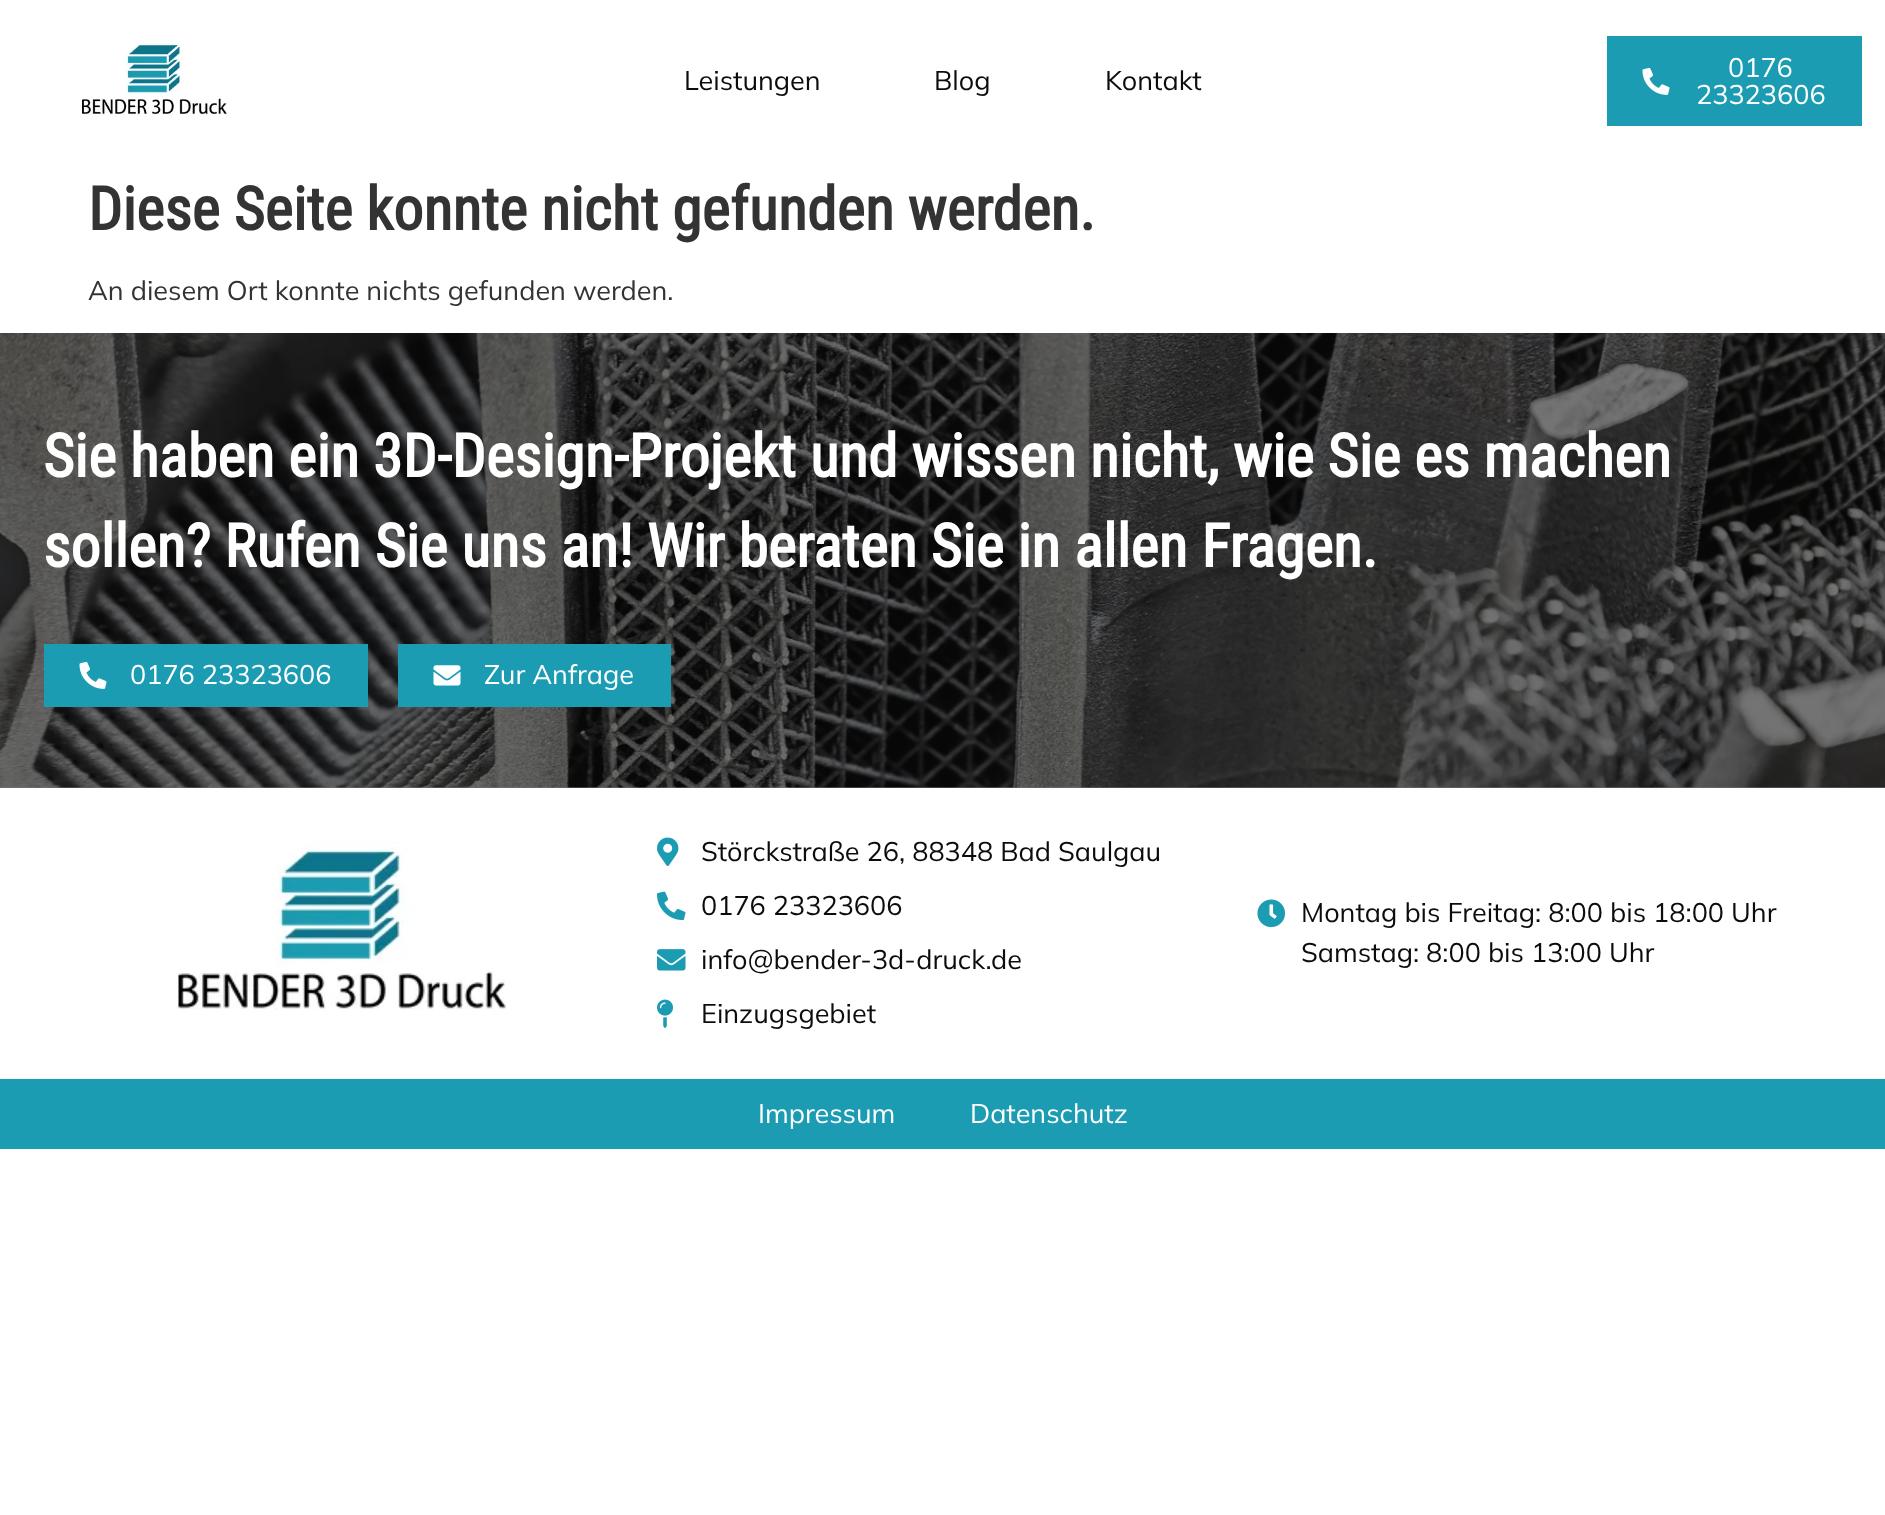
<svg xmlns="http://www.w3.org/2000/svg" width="1885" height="1515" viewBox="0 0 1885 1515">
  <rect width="100%" height="100%" fill="#ffffff"/>
  <rect x="0" y="787" width="1885" height="1" fill="#777777"/>
  <image x="82" y="41" width="145" height="74" href="img1.png"/>
  <text x="684" y="90" font-family="Mulish" font-size="27" fill="#0c0c0c">Leistungen</text>
  <text x="934" y="90" font-family="Mulish" font-size="27" fill="#0c0c0c">Blog</text>
  <text x="1105" y="90" font-family="Mulish" font-size="27" fill="#0c0c0c">Kontakt</text>
  <rect x="1607" y="36" width="255" height="90" fill="#1c9cb2"/>
  <image x="1642" y="67" width="28" height="28" href="img2.png"/>
  <text x="1728" y="77" font-family="Mulish" font-size="27" fill="#ffffff">0176</text>
  <text x="1696" y="104" font-family="Mulish" font-size="27" fill="#ffffff">23323606</text>
  <text x="88" y="230" font-family="Roboto Condensed" font-size="60" font-weight="bold" fill="#333333">Diese Seite konnte nicht gefunden werden.</text>
  <text x="88" y="300" font-family="Mulish" font-size="27" fill="#333333">An diesem Ort konnte nichts gefunden werden.</text>
  <image x="0" y="333" width="1885" height="455" href="img3.png"/>
  <text x="43" y="477" font-family="Roboto Condensed" font-size="60" font-weight="bold" fill="#ffffff">Sie haben ein 3D-Design-Projekt und wissen nicht, wie Sie es machen</text>
  <text x="43" y="567" font-family="Roboto Condensed" font-size="60" font-weight="bold" fill="#ffffff">sollen? Rufen Sie uns an! Wir beraten Sie in allen Fragen.</text>
  <rect x="44" y="644" width="324" height="63" fill="#1c9cb2"/>
  <image x="79" y="661" width="28" height="28" href="img2.png"/>
  <text x="130" y="684" font-family="Mulish" font-size="27" fill="#ffffff">0176 23323606</text>
  <rect x="398" y="644" width="273" height="63" fill="#1c9cb2"/>
  <image x="433" y="665" width="28" height="21" href="img4.png"/>
  <text x="484" y="684" font-family="Mulish" font-size="27" fill="#ffffff">Zur Anfrage</text>
  <image x="175" y="842" width="331" height="168" href="img5.png"/>
  <image x="657" y="837" width="22" height="29" href="img6.png"/>
  <text x="701" y="861" font-family="Mulish" font-size="27" fill="#0c0c0c">Störckstraße 26, 88348 Bad Saulgau</text>
  <image x="657" y="891" width="29" height="30" href="img7.png"/>
  <text x="701" y="915" font-family="Mulish" font-size="27" fill="#0c0c0c">0176 23323606</text>
  <image x="657" y="949" width="29" height="22" href="img8.png"/>
  <text x="701" y="969" font-family="Mulish" font-size="27" fill="#0c0c0c">info@bender-3d-druck.de</text>
  <image x="657" y="999" width="16" height="29" href="img9.png"/>
  <text x="701" y="1023" font-family="Mulish" font-size="27" fill="#0c0c0c">Einzugsgebiet</text>
  <image x="1257" y="899" width="29" height="29" href="img10.png"/>
  <text x="1301" y="922" font-family="Mulish" font-size="27" fill="#0c0c0c">Montag bis Freitag: 8:00 bis 18:00 Uhr</text>
  <text x="1301" y="962" font-family="Mulish" font-size="27" fill="#0c0c0c">Samstag: 8:00 bis 13:00 Uhr</text>
  <rect x="0" y="1079" width="1885" height="70" fill="#1c9cb2"/>
  <text x="758" y="1123" font-family="Mulish" font-size="27" fill="#ffffff">Impressum</text>
  <text x="970" y="1123" font-family="Mulish" font-size="27" fill="#ffffff">Datenschutz</text>
</svg>
